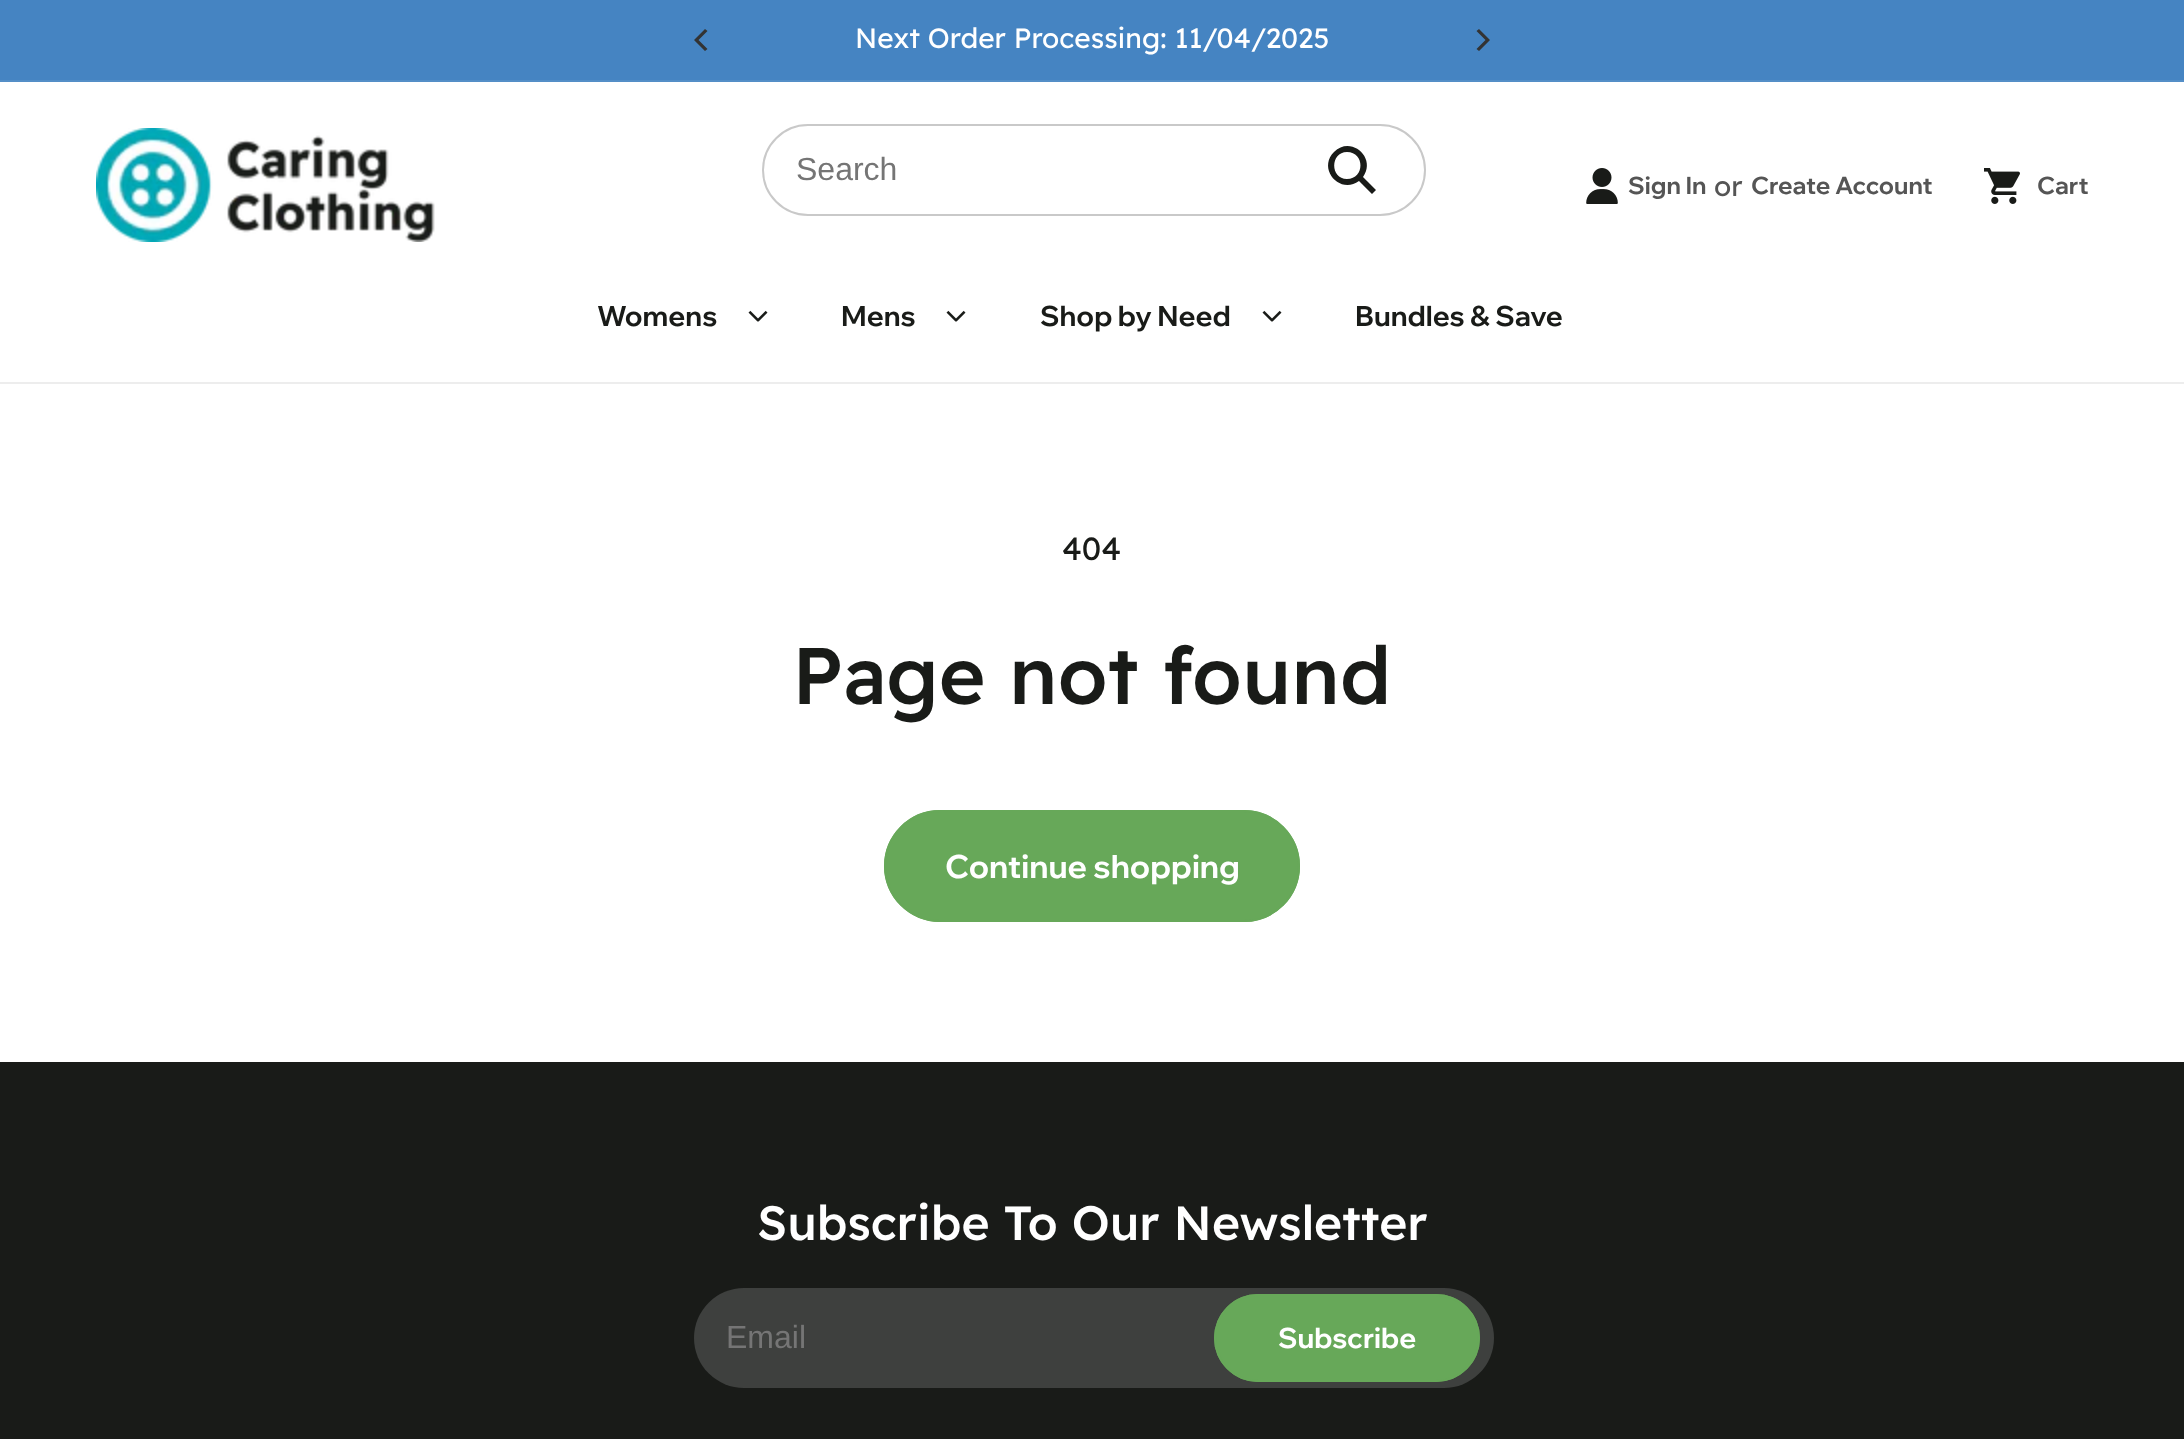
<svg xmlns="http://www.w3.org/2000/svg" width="2184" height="1439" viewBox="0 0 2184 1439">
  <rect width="100%" height="100%" fill="#ffffff"/>
  <rect x="0" y="0" width="2184" height="80" fill="#4584c2"/>
  <rect x="0" y="80" width="2184" height="2" fill="#548ec7"/>
  <path d="M694 40L705 51L707.5 49L698.5 40L707.5 31L705 29Z" fill="#333333"/>
  <text x="855" y="48" font-family="Readex Pro" font-size="28" fill="#ffffff">Next Order Processing: 11/04/2025</text>
  <path d="M1490 40L1479 29L1476.5 31L1485.5 40L1476.5 49L1479 51Z" fill="#333333"/>
  <rect x="0" y="382" width="2184" height="2" fill="#ededed"/>
  <image x="96" y="128" width="339" height="114" href="img1.png"/>
  <rect x="763" y="125" width="662" height="90" rx="45" fill="none" stroke="#c9c9c9" stroke-width="2"/>
  <text x="796" y="180" font-family="Liberation Sans" font-size="32" fill="#757575">Search</text>
  <path d="M1363 177C1377 158 1351 135 1334 152C1317 169 1340 195 1359 181L1372 194L1376 190ZM1347 179C1330 179 1330 152 1347 152C1365 152 1365 179 1347 179Z" fill="#191b18"/>
  <image x="1586" y="168" width="32" height="36" href="img2.png"/>
  <text x="1628" y="194" font-family="Wix Madefor Display" font-size="24" font-weight="bold" fill="#555555">Sign In</text>
  <text x="1714" y="196" font-family="Readex Pro" font-size="28" fill="#555555">or</text>
  <text x="1751" y="194" font-family="Wix Madefor Display" font-size="24" font-weight="bold" fill="#555555">Create Account</text>
  <image x="1984" y="168" width="36" height="36" href="img3.png"/>
  <text x="2037" y="194" font-family="Wix Madefor Display" font-size="24" font-weight="bold" fill="#555555">Cart</text>
  <text x="597" y="326" font-family="Wix Madefor Display" font-size="28" font-weight="bold" fill="#191b18">Womens</text>
  <image x="748" y="310" width="20" height="12" href="img4.png"/>
  <text x="841" y="326" font-family="Wix Madefor Display" font-size="28" font-weight="bold" fill="#191b18">Mens</text>
  <image x="946" y="310" width="20" height="12" href="img4.png"/>
  <text x="1040" y="326" font-family="Wix Madefor Display" font-size="28" font-weight="bold" fill="#191b18">Shop by Need</text>
  <image x="1262" y="310" width="20" height="12" href="img4.png"/>
  <text x="1355" y="326" font-family="Wix Madefor Display" font-size="28" font-weight="bold" fill="#191b18">Bundles &amp; Save</text>
  <text x="1062" y="560" font-family="Readex Pro" font-size="32" fill="#191b18">404</text>
  <text x="792" y="704" font-family="Readex Pro" font-size="80" font-weight="500" fill="#191b18">Page not found</text>
  <rect x="884" y="810" width="416" height="112" rx="56" fill="#67a859"/>
  <rect x="885" y="811" width="414" height="110" rx="55" fill="none" stroke="#67a859" stroke-width="2"/>
  <text x="945" y="878" font-family="Wix Madefor Display" font-size="32" font-weight="bold" fill="#ffffff">Continue shopping</text>
  <rect x="0" y="1062" width="2184" height="377" fill="#191b18"/>
  <text x="757" y="1240" font-family="Readex Pro" font-size="48" font-weight="500" fill="#ffffff">Subscribe To Our Newsletter</text>
  <rect x="694" y="1288" width="800" height="100" rx="50" fill="#3e403e"/>
  <text x="726" y="1348" font-family="Liberation Sans" font-size="32" fill="#757575">Email</text>
  <rect x="1214" y="1294" width="266" height="88" rx="44" fill="#67a859"/>
  <rect x="1215" y="1295" width="264" height="86" rx="43" fill="none" stroke="#67a859" stroke-width="2"/>
  <text x="1278" y="1348" font-family="Wix Madefor Display" font-size="28" font-weight="bold" fill="#ffffff">Subscribe</text>
</svg>
